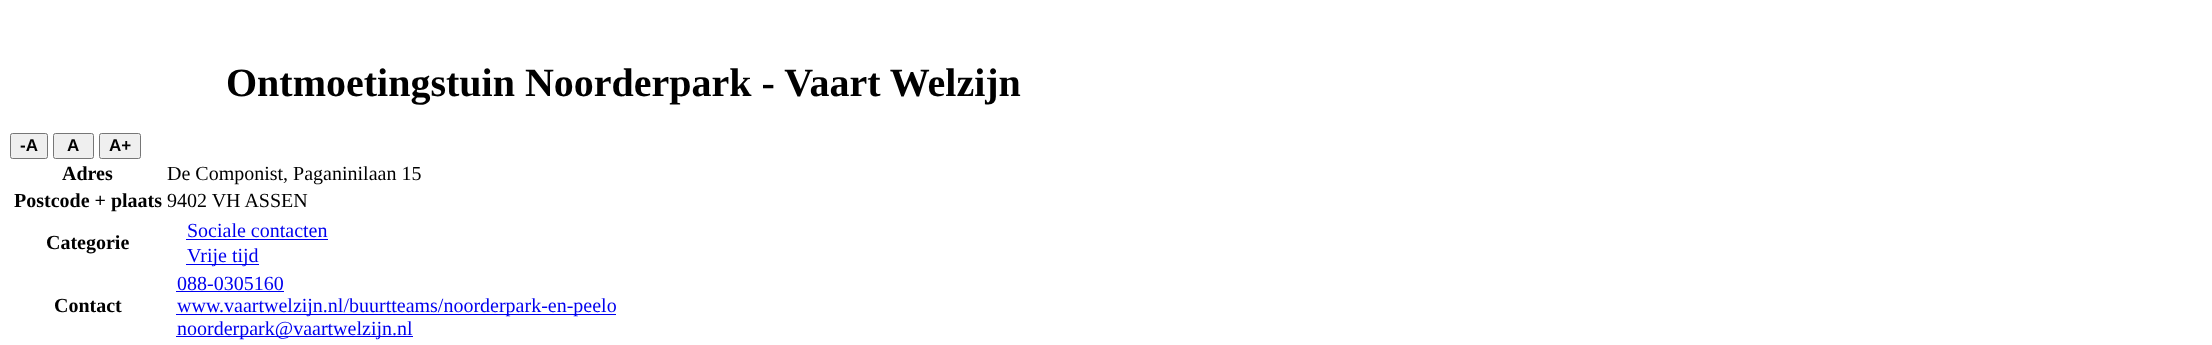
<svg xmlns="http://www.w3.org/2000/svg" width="2212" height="345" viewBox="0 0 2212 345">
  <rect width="100%" height="100%" fill="#ffffff"/>
  <text x="226" y="96" font-family="Liberation Serif" font-size="40" font-weight="bold" fill="#000000">Ontmoetingstuin Noorderpark - Vaart Welzijn</text>
  <rect x="10.5" y="133.5" width="37" height="25" rx="2" fill="#efefef" stroke="#767676"/>
  <text x="20" y="151" font-family="Liberation Sans" font-size="17" font-weight="bold" fill="#000000">-A</text>
  <rect x="53.5" y="133.5" width="40" height="25" rx="2" fill="#efefef" stroke="#767676"/>
  <text x="67" y="151" font-family="Liberation Sans" font-size="17" font-weight="bold" fill="#000000">A</text>
  <rect x="99.5" y="133.5" width="41" height="25" rx="2" fill="#efefef" stroke="#767676"/>
  <text x="109" y="151" font-family="Liberation Sans" font-size="17" font-weight="bold" fill="#000000">A+</text>
  <text x="62" y="180" font-family="Liberation Serif" font-size="20" font-weight="bold" fill="#000000">Adres</text>
  <text x="167" y="180" font-family="Liberation Serif" font-size="20" fill="#000000">De Componist, Paganinilaan 15</text>
  <text x="14" y="207" font-family="Liberation Serif" font-size="20" font-weight="bold" fill="#000000">Postcode + plaats</text>
  <text x="167" y="207" font-family="Liberation Serif" font-size="20" fill="#000000">9402 VH ASSEN</text>
  <text x="46" y="249" font-family="Liberation Serif" font-size="20" font-weight="bold" fill="#000000">Categorie</text>
  <text x="187" y="237" font-family="Liberation Serif" font-size="20" fill="#0000ee">Sociale contacten</text>
  <rect x="186" y="239" width="142" height="1" fill="#0000ee"/>
  <rect x="186" y="264" width="73" height="1" fill="#0000ee"/>
  <text x="187" y="262" font-family="Liberation Serif" font-size="20" fill="#0000ee">Vrije tijd</text>
  <text x="54" y="312" font-family="Liberation Serif" font-size="20" font-weight="bold" fill="#000000">Contact</text>
  <text x="177" y="290" font-family="Liberation Serif" font-size="20" fill="#0000ee">088-0305160</text>
  <rect x="176" y="291" width="108" height="1" fill="#0000ee"/>
  <rect x="176" y="314" width="440" height="1" fill="#0000ee"/>
  <text x="177" y="312" font-family="Liberation Serif" font-size="20" fill="#0000ee">www.vaartwelzijn.nl/buurtteams/noorderpark-en-peelo</text>
  <rect x="176" y="336" width="237" height="1" fill="#0000ee"/>
  <text x="177" y="335" font-family="Liberation Serif" font-size="20" fill="#0000ee">noorderpark@vaartwelzijn.nl</text>
</svg>
